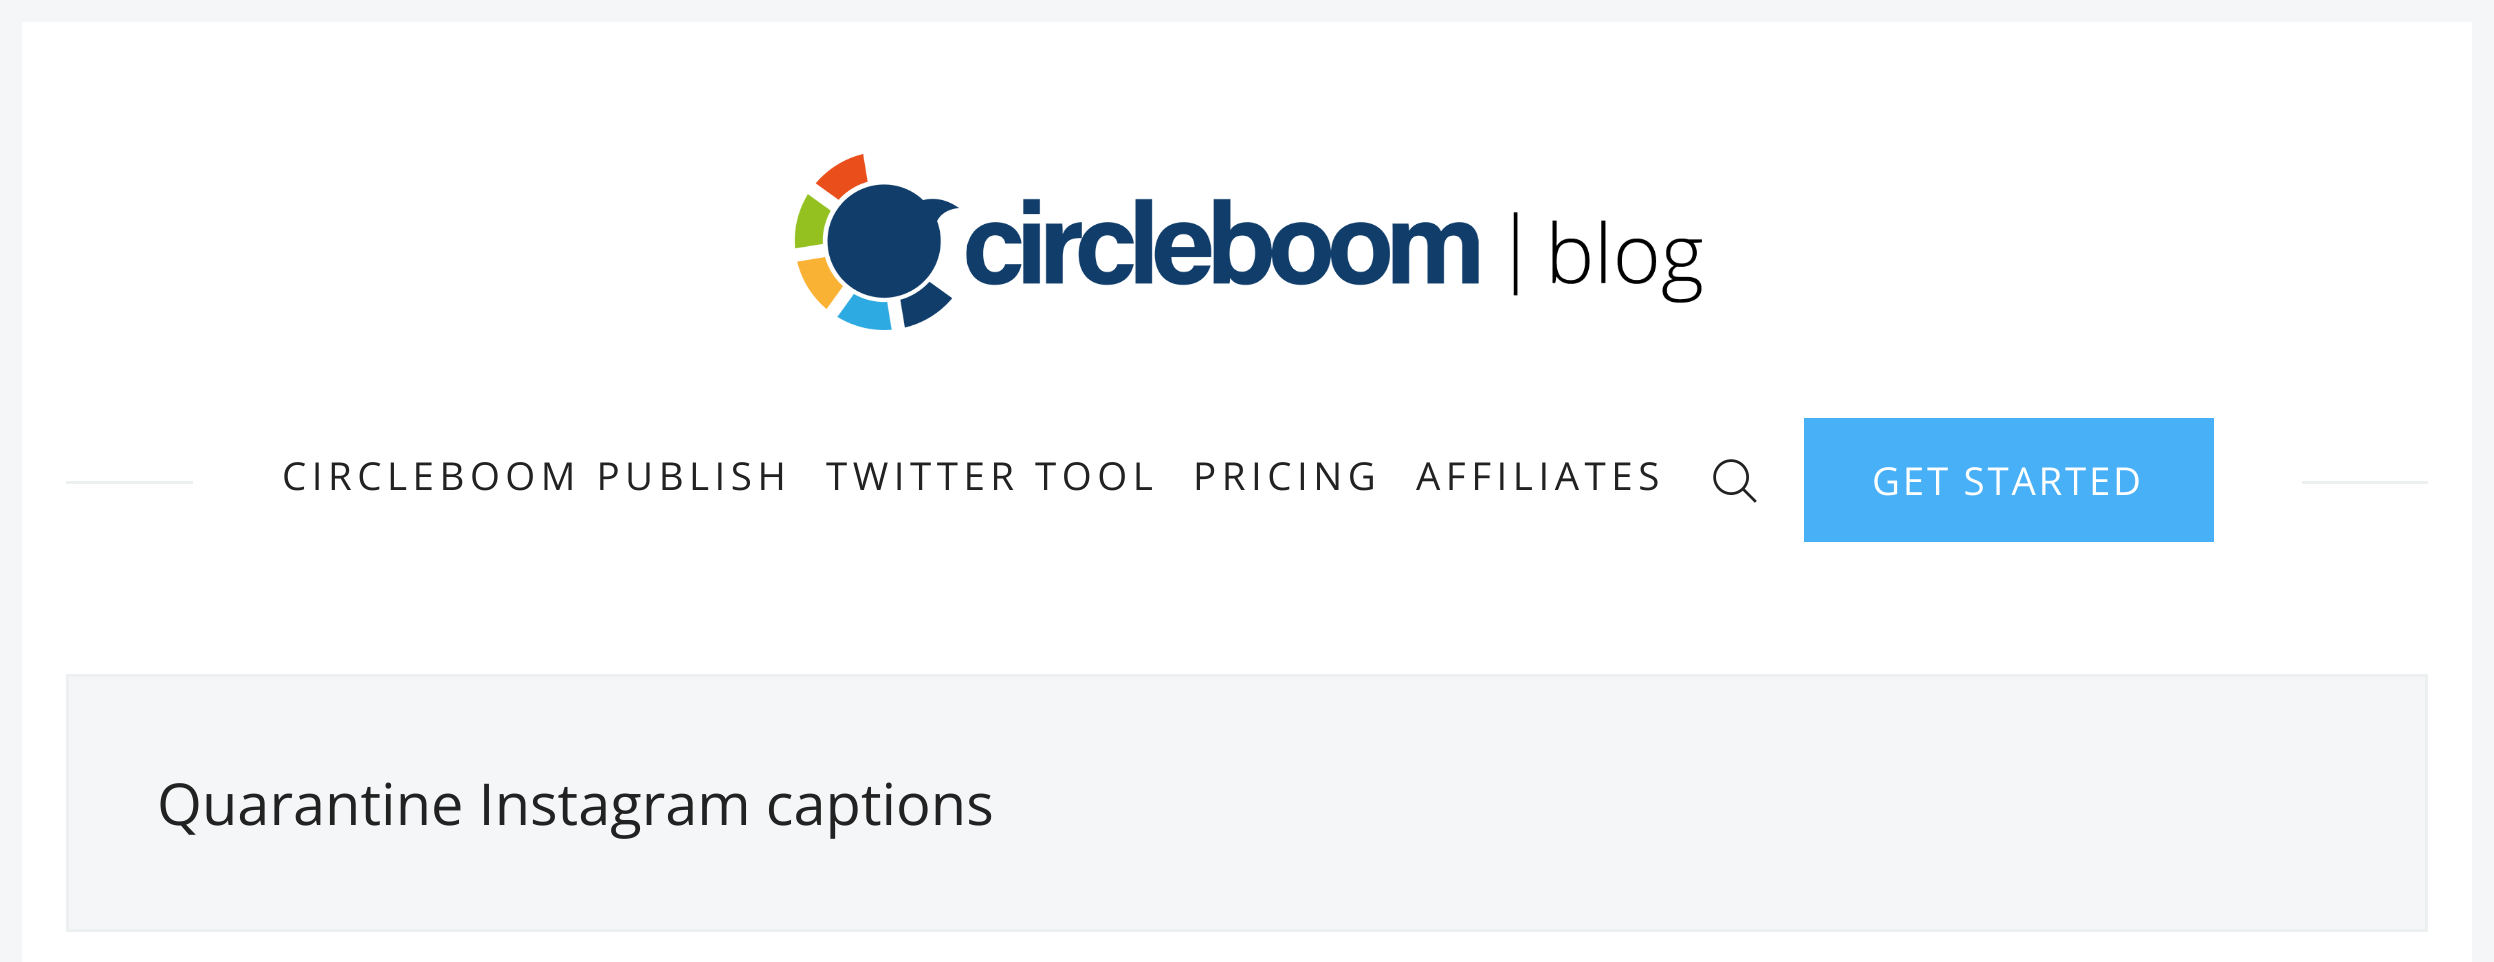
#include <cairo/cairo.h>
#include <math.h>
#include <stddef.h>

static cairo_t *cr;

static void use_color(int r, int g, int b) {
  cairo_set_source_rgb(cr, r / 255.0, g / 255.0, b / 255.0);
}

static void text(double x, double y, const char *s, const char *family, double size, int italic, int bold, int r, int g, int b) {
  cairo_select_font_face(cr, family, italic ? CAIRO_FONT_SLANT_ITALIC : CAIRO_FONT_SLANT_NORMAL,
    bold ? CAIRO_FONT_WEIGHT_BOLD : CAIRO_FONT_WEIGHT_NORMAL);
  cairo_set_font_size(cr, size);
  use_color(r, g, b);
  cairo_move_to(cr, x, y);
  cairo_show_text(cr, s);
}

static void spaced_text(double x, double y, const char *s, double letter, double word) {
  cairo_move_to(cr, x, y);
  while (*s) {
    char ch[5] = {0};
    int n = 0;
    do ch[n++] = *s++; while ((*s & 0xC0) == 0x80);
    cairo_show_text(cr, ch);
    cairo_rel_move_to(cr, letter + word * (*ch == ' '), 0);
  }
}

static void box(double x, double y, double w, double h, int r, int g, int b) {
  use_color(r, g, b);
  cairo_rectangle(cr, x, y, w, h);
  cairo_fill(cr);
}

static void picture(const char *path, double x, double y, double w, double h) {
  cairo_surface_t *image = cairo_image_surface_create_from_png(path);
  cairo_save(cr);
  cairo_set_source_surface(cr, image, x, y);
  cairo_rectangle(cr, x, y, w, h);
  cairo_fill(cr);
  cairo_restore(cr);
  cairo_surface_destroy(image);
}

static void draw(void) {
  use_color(255, 255, 255);
  cairo_paint(cr);
  cairo_rectangle(cr, 11, 11, 2472, 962);
  use_color(244, 246, 248);
  cairo_set_line_width(cr, 22);
  cairo_stroke(cr);
  picture("img_01.png", 794, 154, 908, 176);
  box(66, 481, 2362, 3, 236, 240, 241);
  box(193, 481, 2109, 3, 255, 255, 255);
  picture("img_02.png", 1713, 459, 44, 44);
  box(1804, 418, 410, 124, 72, 176, 247);
  use_color(244, 246, 248);
  cairo_rectangle(cr, 67.5, 675.5, 2359, 255);
  cairo_fill_preserve(cr);
  use_color(236, 240, 241);
  cairo_set_line_width(cr, 3);
  cairo_stroke(cr);
  cairo_select_font_face(cr, "Open Sans", CAIRO_FONT_SLANT_NORMAL, CAIRO_FONT_WEIGHT_NORMAL);
  cairo_set_font_size(cr, 38.5);
  use_color(34, 34, 34);
  spaced_text(282, 490, "CIRCLEBOOM PUBLISH", 5.5, 0);
  spaced_text(826, 490, "TWITTER TOOL", 5.5, 0);
  spaced_text(1193, 490, "PRICING", 5.5, 0);
  spaced_text(1416, 490, "AFFILIATES", 5.5, 0);
  use_color(255, 255, 255);
  spaced_text(1872, 495, "GET STARTED", 2.75, 0);
  text(157, 825, "Quarantine Instagram captions", "Open Sans", 57.75, 0, 0, 34, 34, 34);
}

int main(void) {
  cairo_surface_t *surface = cairo_image_surface_create(CAIRO_FORMAT_RGB24, 2494, 962);
  cr = cairo_create(surface);
  cairo_font_options_t *options = cairo_font_options_create();
  cairo_font_options_set_hint_metrics(options, CAIRO_HINT_METRICS_OFF);
  cairo_font_options_set_hint_style(options, CAIRO_HINT_STYLE_NONE);
  cairo_set_font_options(cr, options);
  cairo_set_miter_limit(cr, 4);
  draw();
  cairo_surface_write_to_png(surface, "out.png");
  cairo_font_options_destroy(options);
  cairo_destroy(cr);
  cairo_surface_destroy(surface);
  return 0;
}
